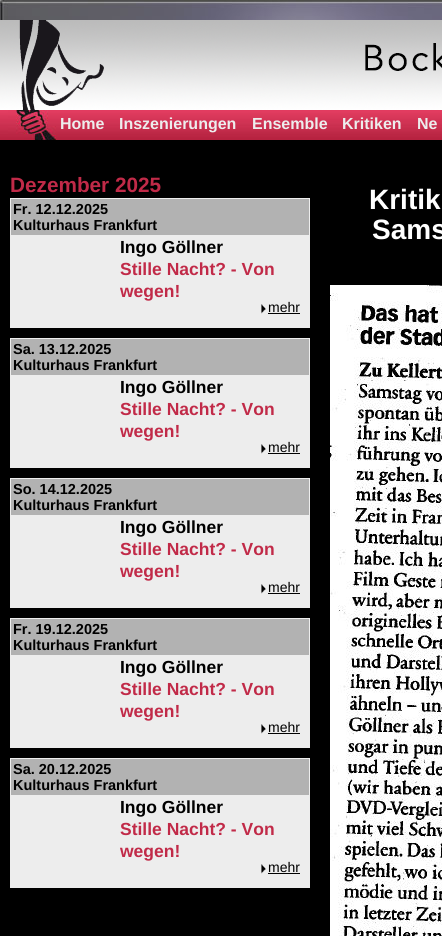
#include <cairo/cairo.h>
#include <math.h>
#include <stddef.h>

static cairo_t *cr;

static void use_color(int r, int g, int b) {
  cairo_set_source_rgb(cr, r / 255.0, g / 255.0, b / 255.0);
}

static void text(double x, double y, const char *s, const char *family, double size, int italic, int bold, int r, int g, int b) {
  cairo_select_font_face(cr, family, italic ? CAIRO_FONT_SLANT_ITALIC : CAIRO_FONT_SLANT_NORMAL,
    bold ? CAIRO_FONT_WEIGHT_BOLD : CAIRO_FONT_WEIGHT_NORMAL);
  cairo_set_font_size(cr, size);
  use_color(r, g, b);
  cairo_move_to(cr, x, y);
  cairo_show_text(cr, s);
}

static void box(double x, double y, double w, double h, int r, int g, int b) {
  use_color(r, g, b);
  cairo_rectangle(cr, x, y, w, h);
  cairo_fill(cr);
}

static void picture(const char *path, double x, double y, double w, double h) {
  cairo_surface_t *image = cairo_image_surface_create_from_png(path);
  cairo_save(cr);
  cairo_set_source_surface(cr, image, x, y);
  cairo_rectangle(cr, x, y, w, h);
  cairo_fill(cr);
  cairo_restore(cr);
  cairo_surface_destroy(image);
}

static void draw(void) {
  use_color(255, 255, 255);
  cairo_paint(cr);
  picture("img_01.png", 0, 0, 442, 20);
  box(0, 140, 442, 796, 0, 0, 0);
  picture("img_02.png", 0, 20, 442, 90);
  picture("img_03.png", 0, 110, 442, 30);
  box(10, 236, 300, 92, 237, 237, 237);
  use_color(178, 178, 178);
  cairo_rectangle(cr, 10.5, 198.5, 299, 37);
  cairo_fill_preserve(cr);
  use_color(237, 237, 237);
  cairo_set_line_width(cr, 1);
  cairo_stroke(cr);
  picture("img_04.png", 261, 304, 5, 10);
  box(268, 313, 32, 1, 0, 0, 0);
  box(10, 376, 300, 92, 237, 237, 237);
  use_color(178, 178, 178);
  cairo_rectangle(cr, 10.5, 338.5, 299, 37);
  cairo_fill_preserve(cr);
  use_color(237, 237, 237);
  cairo_stroke(cr);
  picture("img_04.png", 261, 444, 5, 10);
  box(268, 453, 32, 1, 0, 0, 0);
  box(10, 516, 300, 92, 237, 237, 237);
  use_color(178, 178, 178);
  cairo_rectangle(cr, 10.5, 478.5, 299, 37);
  cairo_fill_preserve(cr);
  use_color(237, 237, 237);
  cairo_stroke(cr);
  picture("img_04.png", 261, 584, 5, 10);
  box(268, 593, 32, 1, 0, 0, 0);
  box(10, 656, 300, 92, 237, 237, 237);
  use_color(178, 178, 178);
  cairo_rectangle(cr, 10.5, 618.5, 299, 37);
  cairo_fill_preserve(cr);
  use_color(237, 237, 237);
  cairo_stroke(cr);
  picture("img_04.png", 261, 724, 5, 10);
  box(268, 733, 32, 1, 0, 0, 0);
  box(10, 796, 300, 92, 237, 237, 237);
  use_color(178, 178, 178);
  cairo_rectangle(cr, 10.5, 758.5, 299, 37);
  cairo_fill_preserve(cr);
  use_color(237, 237, 237);
  cairo_stroke(cr);
  picture("img_04.png", 261, 864, 5, 10);
  box(268, 873, 32, 1, 0, 0, 0);
  picture("img_05.png", 330, 285, 112, 651);
  text(60, 129, "Home", "Liberation Sans", 16, 0, 1, 237, 237, 237);
  text(119, 129, "Inszenierungen", "Liberation Sans", 16, 0, 1, 237, 237, 237);
  text(252, 129, "Ensemble", "Liberation Sans", 16, 0, 1, 237, 237, 237);
  text(342, 129, "Kritiken", "Liberation Sans", 16, 0, 1, 237, 237, 237);
  text(417, 129, "Ne", "Liberation Sans", 16, 0, 1, 237, 237, 237);
  text(10, 192, "Dezember 2025", "Liberation Sans", 20.75, 0, 1, 193, 42, 72);
  text(13, 214, "Fr. 12.12.2025", "Liberation Sans", 14.5, 0, 1, 0, 0, 0);
  text(13, 230, "Kulturhaus Frankfurt", "Liberation Sans", 14.5, 0, 1, 0, 0, 0);
  text(120, 253, "Ingo Göllner", "Liberation Sans", 17.5, 0, 1, 0, 0, 0);
  text(120, 275, "Stille Nacht? - Von", "Liberation Sans", 17.5, 0, 1, 193, 42, 72);
  text(120, 297, "wegen!", "Liberation Sans", 17.5, 0, 1, 193, 42, 72);
  text(268, 312, "mehr", "Liberation Sans", 14, 0, 0, 0, 0, 0);
  text(13, 354, "Sa. 13.12.2025", "Liberation Sans", 14.5, 0, 1, 0, 0, 0);
  text(13, 370, "Kulturhaus Frankfurt", "Liberation Sans", 14.5, 0, 1, 0, 0, 0);
  text(120, 393, "Ingo Göllner", "Liberation Sans", 17.5, 0, 1, 0, 0, 0);
  text(120, 415, "Stille Nacht? - Von", "Liberation Sans", 17.5, 0, 1, 193, 42, 72);
  text(120, 437, "wegen!", "Liberation Sans", 17.5, 0, 1, 193, 42, 72);
  text(268, 452, "mehr", "Liberation Sans", 14, 0, 0, 0, 0, 0);
  text(13, 494, "So. 14.12.2025", "Liberation Sans", 14.5, 0, 1, 0, 0, 0);
  text(13, 510, "Kulturhaus Frankfurt", "Liberation Sans", 14.5, 0, 1, 0, 0, 0);
  text(120, 533, "Ingo Göllner", "Liberation Sans", 17.5, 0, 1, 0, 0, 0);
  text(120, 555, "Stille Nacht? - Von", "Liberation Sans", 17.5, 0, 1, 193, 42, 72);
  text(120, 577, "wegen!", "Liberation Sans", 17.5, 0, 1, 193, 42, 72);
  text(268, 592, "mehr", "Liberation Sans", 14, 0, 0, 0, 0, 0);
  text(13, 634, "Fr. 19.12.2025", "Liberation Sans", 14.5, 0, 1, 0, 0, 0);
  text(13, 650, "Kulturhaus Frankfurt", "Liberation Sans", 14.5, 0, 1, 0, 0, 0);
  text(120, 673, "Ingo Göllner", "Liberation Sans", 17.5, 0, 1, 0, 0, 0);
  text(120, 695, "Stille Nacht? - Von", "Liberation Sans", 17.5, 0, 1, 193, 42, 72);
  text(120, 717, "wegen!", "Liberation Sans", 17.5, 0, 1, 193, 42, 72);
  text(268, 732, "mehr", "Liberation Sans", 14, 0, 0, 0, 0, 0);
  text(13, 774, "Sa. 20.12.2025", "Liberation Sans", 14.5, 0, 1, 0, 0, 0);
  text(13, 790, "Kulturhaus Frankfurt", "Liberation Sans", 14.5, 0, 1, 0, 0, 0);
  text(120, 813, "Ingo Göllner", "Liberation Sans", 17.5, 0, 1, 0, 0, 0);
  text(120, 835, "Stille Nacht? - Von", "Liberation Sans", 17.5, 0, 1, 193, 42, 72);
  text(120, 857, "wegen!", "Liberation Sans", 17.5, 0, 1, 193, 42, 72);
  text(268, 872, "mehr", "Liberation Sans", 14, 0, 0, 0, 0, 0);
  text(369, 209, "Kritik", "Liberation Sans", 28, 0, 1, 255, 255, 255);
  text(372, 239, "Sams", "Liberation Sans", 28, 0, 1, 255, 255, 255);
}

int main(void) {
  cairo_surface_t *surface = cairo_image_surface_create(CAIRO_FORMAT_RGB24, 442, 936);
  cr = cairo_create(surface);
  cairo_font_options_t *options = cairo_font_options_create();
  cairo_font_options_set_hint_metrics(options, CAIRO_HINT_METRICS_OFF);
  cairo_font_options_set_hint_style(options, CAIRO_HINT_STYLE_NONE);
  cairo_set_font_options(cr, options);
  cairo_set_miter_limit(cr, 4);
  draw();
  cairo_surface_write_to_png(surface, "out.png");
  cairo_font_options_destroy(options);
  cairo_destroy(cr);
  cairo_surface_destroy(surface);
  return 0;
}
